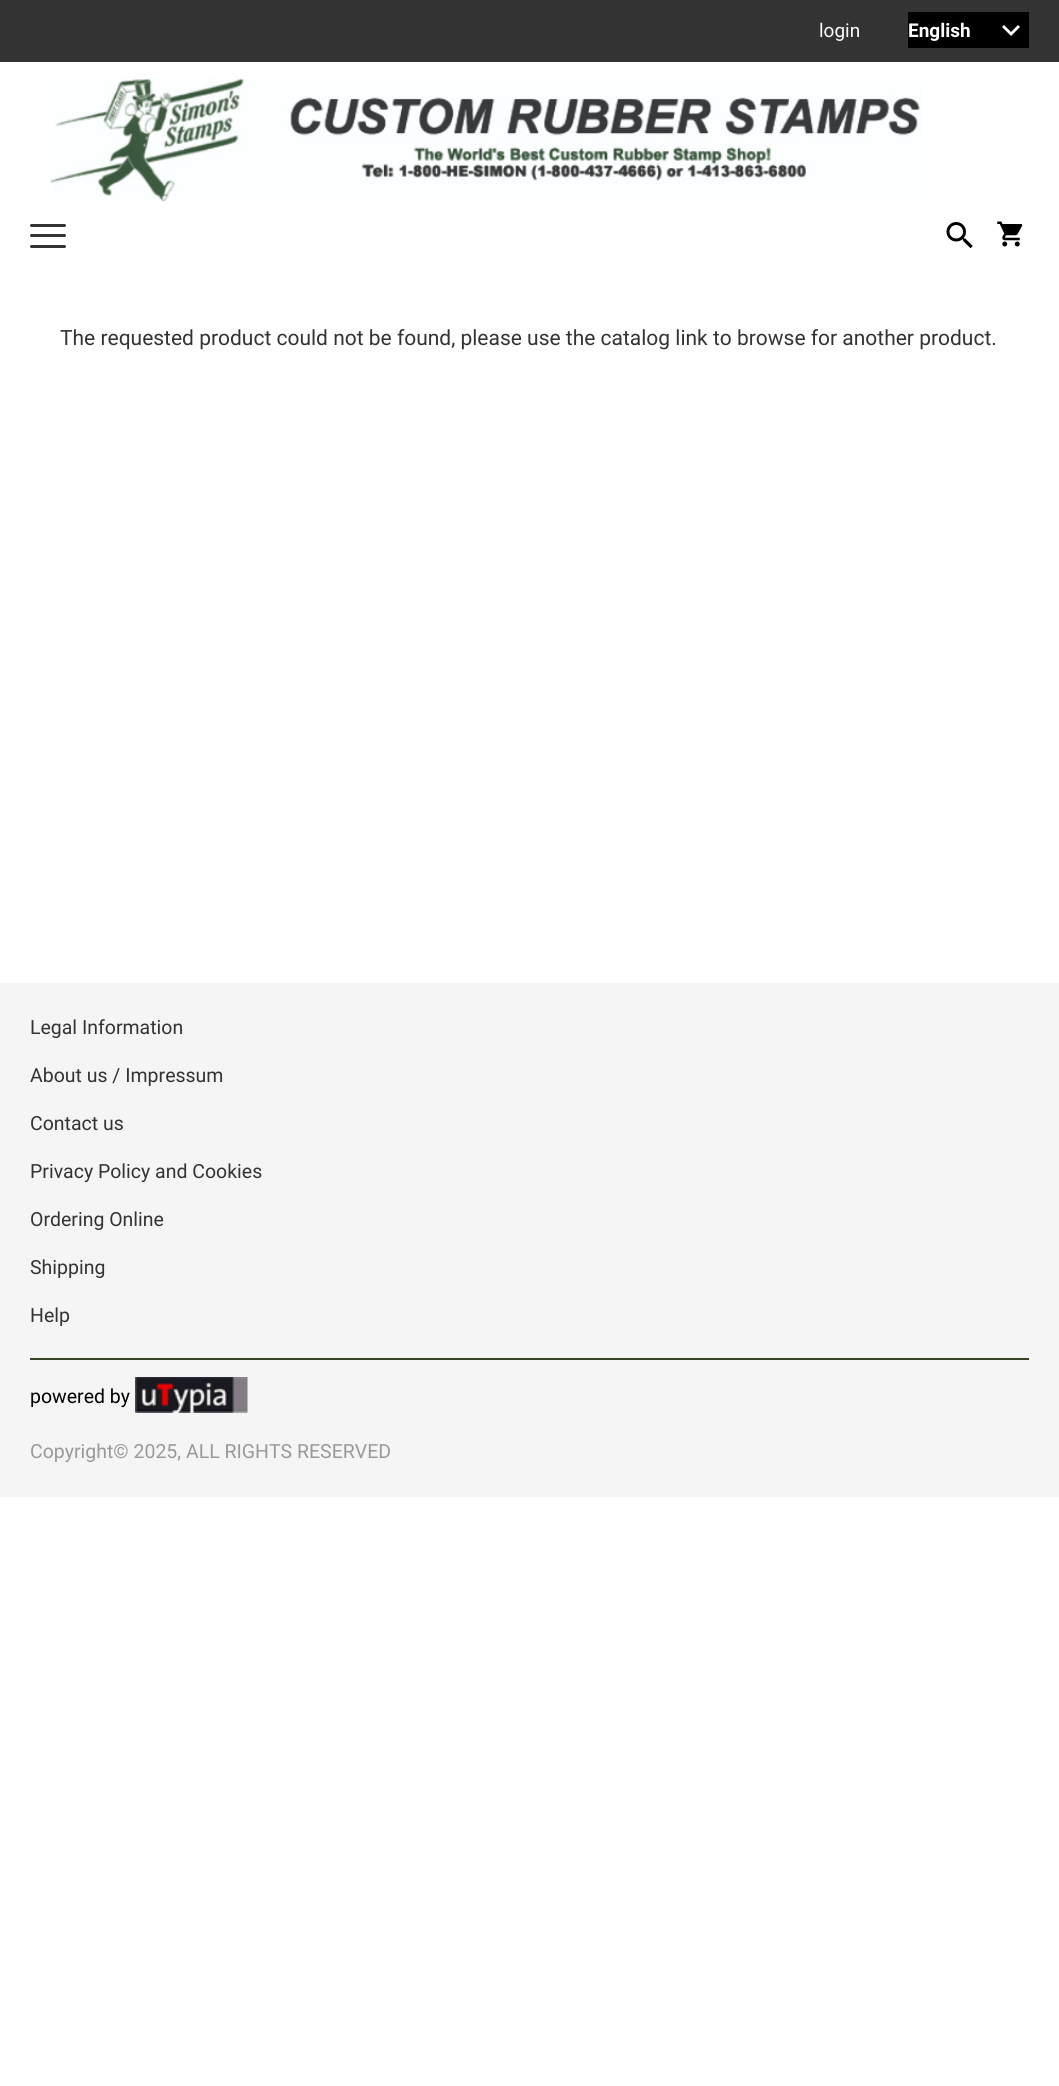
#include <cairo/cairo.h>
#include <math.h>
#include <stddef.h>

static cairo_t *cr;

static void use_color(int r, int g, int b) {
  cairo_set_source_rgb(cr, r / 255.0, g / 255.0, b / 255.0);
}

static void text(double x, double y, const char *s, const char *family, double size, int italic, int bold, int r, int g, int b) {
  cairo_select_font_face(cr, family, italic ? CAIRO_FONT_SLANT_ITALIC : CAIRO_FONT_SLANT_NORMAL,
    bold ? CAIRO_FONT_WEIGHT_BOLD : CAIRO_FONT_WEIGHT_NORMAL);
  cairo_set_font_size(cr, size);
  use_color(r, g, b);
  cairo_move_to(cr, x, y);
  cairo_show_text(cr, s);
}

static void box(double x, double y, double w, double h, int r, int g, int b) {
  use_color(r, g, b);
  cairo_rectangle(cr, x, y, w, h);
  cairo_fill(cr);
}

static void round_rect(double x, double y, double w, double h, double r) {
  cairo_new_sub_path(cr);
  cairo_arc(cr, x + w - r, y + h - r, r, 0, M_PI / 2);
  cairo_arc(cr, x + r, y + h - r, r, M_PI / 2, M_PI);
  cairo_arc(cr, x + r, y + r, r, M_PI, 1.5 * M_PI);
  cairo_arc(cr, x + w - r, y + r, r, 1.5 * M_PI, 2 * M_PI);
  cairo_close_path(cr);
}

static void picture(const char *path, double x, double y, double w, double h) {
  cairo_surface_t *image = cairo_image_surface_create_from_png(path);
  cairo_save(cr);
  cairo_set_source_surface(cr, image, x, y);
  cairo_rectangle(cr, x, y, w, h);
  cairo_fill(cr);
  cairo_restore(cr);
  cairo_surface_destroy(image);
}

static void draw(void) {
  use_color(255, 255, 255);
  cairo_paint(cr);
  box(0, 0, 1059, 62, 51, 51, 51);
  box(908, 12, 121, 36, 0, 0, 0);
  use_color(255, 255, 255);
  cairo_new_path(cr);
  cairo_move_to(cr, 1004, 25);
  cairo_line_to(cr, 1011, 32);
  cairo_line_to(cr, 1018, 25);
  cairo_line_to(cr, 1020, 27);
  cairo_line_to(cr, 1011, 36);
  cairo_line_to(cr, 1002, 27);
  cairo_close_path(cr);
  cairo_fill(cr);
  use_color(51, 51, 51);
  round_rect(30, 234, 36, 3, 1.5);
  cairo_fill(cr);
  round_rect(30, 224, 36, 3, 1.5);
  cairo_fill(cr);
  round_rect(30, 245, 36, 3, 1.5);
  cairo_fill(cr);
  picture("img_01.png", 50, 77, 873, 124);
  picture("img_02.png", 946, 222, 27, 27);
  picture("img_03.png", 997, 221, 26, 26);
  box(0, 983, 1059, 514, 245, 245, 245);
  box(30, 1358, 999, 2, 52, 69, 40);
  picture("img_04.png", 135, 1377, 113, 36);
  text(819, 37, "login", "Roboto", 19, 0, 0, 255, 255, 255);
  text(908, 37, "English", "Roboto", 19, 0, 1, 255, 255, 255);
  text(60, 345, "The requested product could not be found, please use the catalog link to browse for another product.", "Roboto", 21, 0, 0, 51, 51, 51);
  text(30, 1034, "Legal Information", "Roboto", 19.5, 0, 0, 51, 51, 51);
  text(30, 1082, "About us / Impressum", "Roboto", 19.5, 0, 0, 51, 51, 51);
  text(30, 1130, "Contact us", "Roboto", 19.5, 0, 0, 51, 51, 51);
  text(30, 1178, "Privacy Policy and Cookies", "Roboto", 19.5, 0, 0, 51, 51, 51);
  text(30, 1226, "Ordering Online", "Roboto", 19.5, 0, 0, 51, 51, 51);
  text(30, 1274, "Shipping", "Roboto", 19.5, 0, 0, 51, 51, 51);
  text(30, 1322, "Help", "Roboto", 19.5, 0, 0, 51, 51, 51);
  text(30, 1403, "powered by", "Roboto", 19.5, 0, 0, 0, 0, 0);
  text(30, 1458, "Copyright© 2025, ALL RIGHTS RESERVED", "Roboto", 19.5, 0, 0, 153, 153, 153);
}

int main(void) {
  cairo_surface_t *surface = cairo_image_surface_create(CAIRO_FORMAT_RGB24, 1059, 2086);
  cr = cairo_create(surface);
  cairo_font_options_t *options = cairo_font_options_create();
  cairo_font_options_set_hint_metrics(options, CAIRO_HINT_METRICS_OFF);
  cairo_font_options_set_hint_style(options, CAIRO_HINT_STYLE_NONE);
  cairo_set_font_options(cr, options);
  cairo_set_miter_limit(cr, 4);
  draw();
  cairo_surface_write_to_png(surface, "out.png");
  cairo_font_options_destroy(options);
  cairo_destroy(cr);
  cairo_surface_destroy(surface);
  return 0;
}
